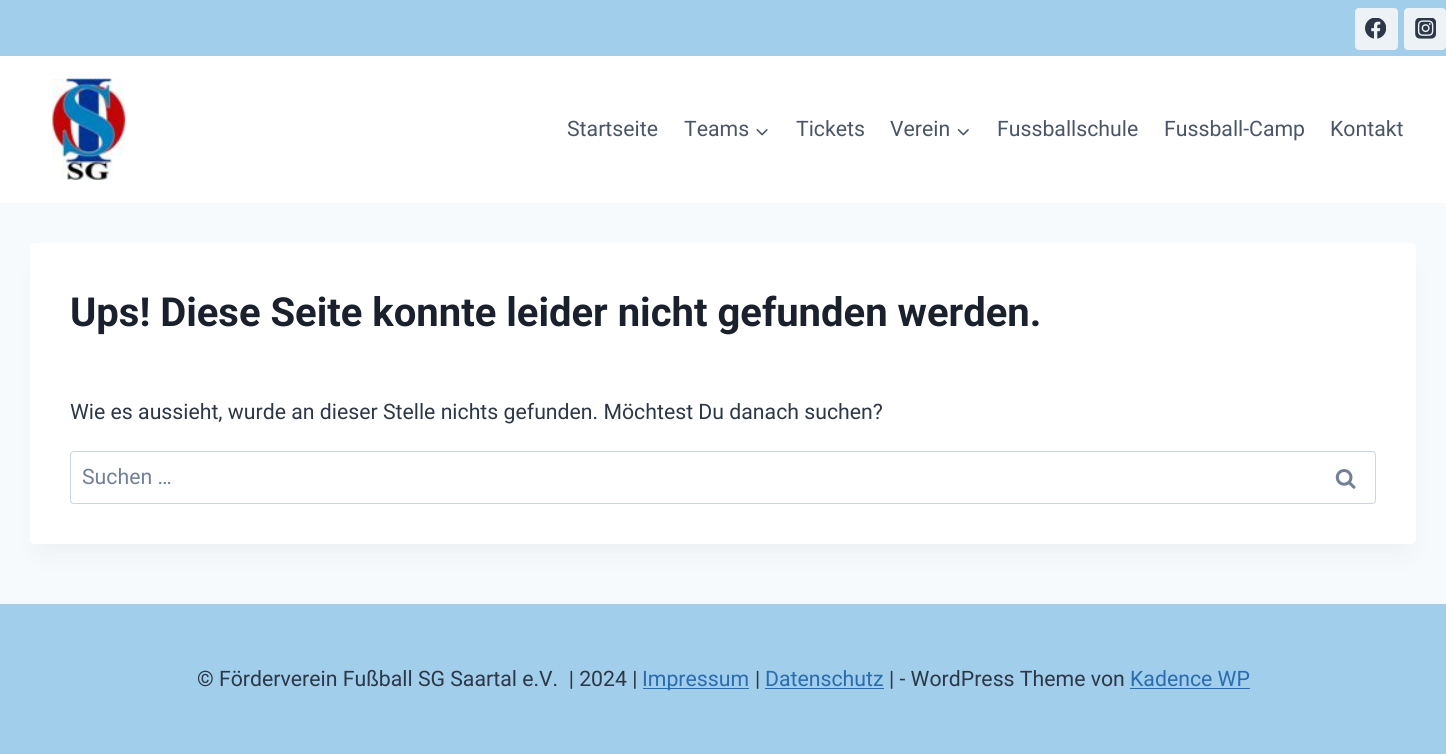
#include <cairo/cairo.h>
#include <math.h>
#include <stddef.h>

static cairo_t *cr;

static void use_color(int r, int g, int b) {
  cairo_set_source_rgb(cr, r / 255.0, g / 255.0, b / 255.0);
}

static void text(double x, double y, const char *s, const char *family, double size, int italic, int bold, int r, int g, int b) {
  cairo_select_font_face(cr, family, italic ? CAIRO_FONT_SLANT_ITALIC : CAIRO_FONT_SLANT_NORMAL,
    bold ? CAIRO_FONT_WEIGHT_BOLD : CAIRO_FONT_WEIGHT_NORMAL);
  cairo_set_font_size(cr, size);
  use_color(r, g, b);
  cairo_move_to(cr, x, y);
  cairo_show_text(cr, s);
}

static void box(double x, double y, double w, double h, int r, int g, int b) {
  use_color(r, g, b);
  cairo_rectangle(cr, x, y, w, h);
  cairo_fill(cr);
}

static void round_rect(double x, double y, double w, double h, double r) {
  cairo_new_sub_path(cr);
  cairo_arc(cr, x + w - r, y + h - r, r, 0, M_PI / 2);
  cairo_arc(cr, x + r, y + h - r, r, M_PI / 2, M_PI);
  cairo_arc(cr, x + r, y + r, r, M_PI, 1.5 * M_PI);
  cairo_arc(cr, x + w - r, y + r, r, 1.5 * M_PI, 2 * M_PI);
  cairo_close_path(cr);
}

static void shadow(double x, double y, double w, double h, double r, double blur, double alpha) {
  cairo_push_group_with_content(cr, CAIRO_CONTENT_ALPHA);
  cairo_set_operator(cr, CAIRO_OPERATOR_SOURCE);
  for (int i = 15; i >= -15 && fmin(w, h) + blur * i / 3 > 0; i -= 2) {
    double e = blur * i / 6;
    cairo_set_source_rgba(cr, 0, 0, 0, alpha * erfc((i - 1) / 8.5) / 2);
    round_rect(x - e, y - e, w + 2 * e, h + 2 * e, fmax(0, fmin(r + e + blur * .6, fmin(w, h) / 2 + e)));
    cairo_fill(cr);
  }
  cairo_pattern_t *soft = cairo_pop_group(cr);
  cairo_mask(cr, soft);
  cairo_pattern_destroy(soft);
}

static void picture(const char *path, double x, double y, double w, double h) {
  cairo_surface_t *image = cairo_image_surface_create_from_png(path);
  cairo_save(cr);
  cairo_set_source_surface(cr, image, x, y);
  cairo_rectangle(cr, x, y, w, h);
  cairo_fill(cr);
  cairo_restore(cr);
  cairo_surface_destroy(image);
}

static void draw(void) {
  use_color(247, 250, 252);
  cairo_paint(cr);
  box(0, 56, 1446, 147, 255, 255, 255);
  box(0, 0, 1446, 56, 160, 206, 235);
  use_color(237, 242, 247);
  round_rect(1355, 8, 43, 42, 4);
  cairo_fill(cr);
  picture("img_01.png", 1365, 18, 21, 21);
  round_rect(1404, 8, 42, 42, 4);
  cairo_fill(cr);
  picture("img_02.png", 1415, 18, 21, 21);
  picture("img_03.png", 52, 78, 73, 102);
  picture("img_04.png", 756, 129, 12, 7);
  picture("img_05.png", 957, 129, 12, 7);
  use_color(0, 0, 0);
  shadow(43, 274, 1361, 276, 0, 15.5, 0.05);
  use_color(255, 255, 255);
  round_rect(30, 243, 1386, 301, 5);
  cairo_fill(cr);
  round_rect(70.5, 451.5, 1305, 52, 3.5);
  use_color(203, 213, 224);
  cairo_set_line_width(cr, 1);
  cairo_stroke(cr);
  picture("img_06.png", 1335, 469, 21, 20);
  box(0, 604, 1446, 150, 160, 206, 235);
  box(643, 688, 106, 1, 43, 108, 176);
  box(765, 688, 119, 1, 43, 108, 176);
  box(1130, 688, 120, 1, 43, 108, 176);
  text(567, 136, "Startseite", "Roboto", 21.25, 0, 0, 74, 85, 104);
  text(684, 136, "Teams", "Roboto", 21.25, 0, 0, 74, 85, 104);
  text(796, 136, "Tickets", "Roboto", 21.25, 0, 0, 74, 85, 104);
  text(890, 136, "Verein", "Roboto", 21.25, 0, 0, 74, 85, 104);
  text(997, 136, "Fussballschule", "Roboto", 21.25, 0, 0, 74, 85, 104);
  text(1164, 136, "Fussball-Camp", "Roboto", 21.25, 0, 0, 74, 85, 104);
  text(1330, 136, "Kontakt", "Roboto", 21.25, 0, 0, 74, 85, 104);
  text(70, 326, "Ups! Diese Seite konnte leider nicht gefunden werden.", "Roboto", 40, 0, 1, 26, 32, 44);
  text(70, 419, "Wie es aussieht, wurde an dieser Stelle nichts gefunden. Möchtest Du danach suchen?", "Roboto", 21.25, 0, 0, 45, 55, 72);
  text(82, 484, "Suchen …", "Roboto", 21.25, 0, 0, 113, 128, 150);
  text(197, 686, "© Förderverein Fußball SG Saartal e.V.  | 2024 |", "Roboto", 21.25, 0, 0, 45, 55, 72);
  text(642, 686, "Impressum", "Roboto", 21.25, 0, 0, 43, 108, 176);
  text(755, 686, "|", "Roboto", 21.25, 0, 0, 45, 55, 72);
  text(765, 686, "Datenschutz", "Roboto", 21.25, 0, 0, 43, 108, 176);
  text(889, 686, "| - WordPress Theme von", "Roboto", 21.25, 0, 0, 45, 55, 72);
  text(1130, 686, "Kadence WP", "Roboto", 21.25, 0, 0, 43, 108, 176);
}

int main(void) {
  cairo_surface_t *surface = cairo_image_surface_create(CAIRO_FORMAT_RGB24, 1446, 754);
  cr = cairo_create(surface);
  cairo_font_options_t *options = cairo_font_options_create();
  cairo_font_options_set_hint_metrics(options, CAIRO_HINT_METRICS_OFF);
  cairo_font_options_set_hint_style(options, CAIRO_HINT_STYLE_NONE);
  cairo_set_font_options(cr, options);
  cairo_set_miter_limit(cr, 4);
  draw();
  cairo_surface_write_to_png(surface, "out.png");
  cairo_font_options_destroy(options);
  cairo_destroy(cr);
  cairo_surface_destroy(surface);
  return 0;
}
